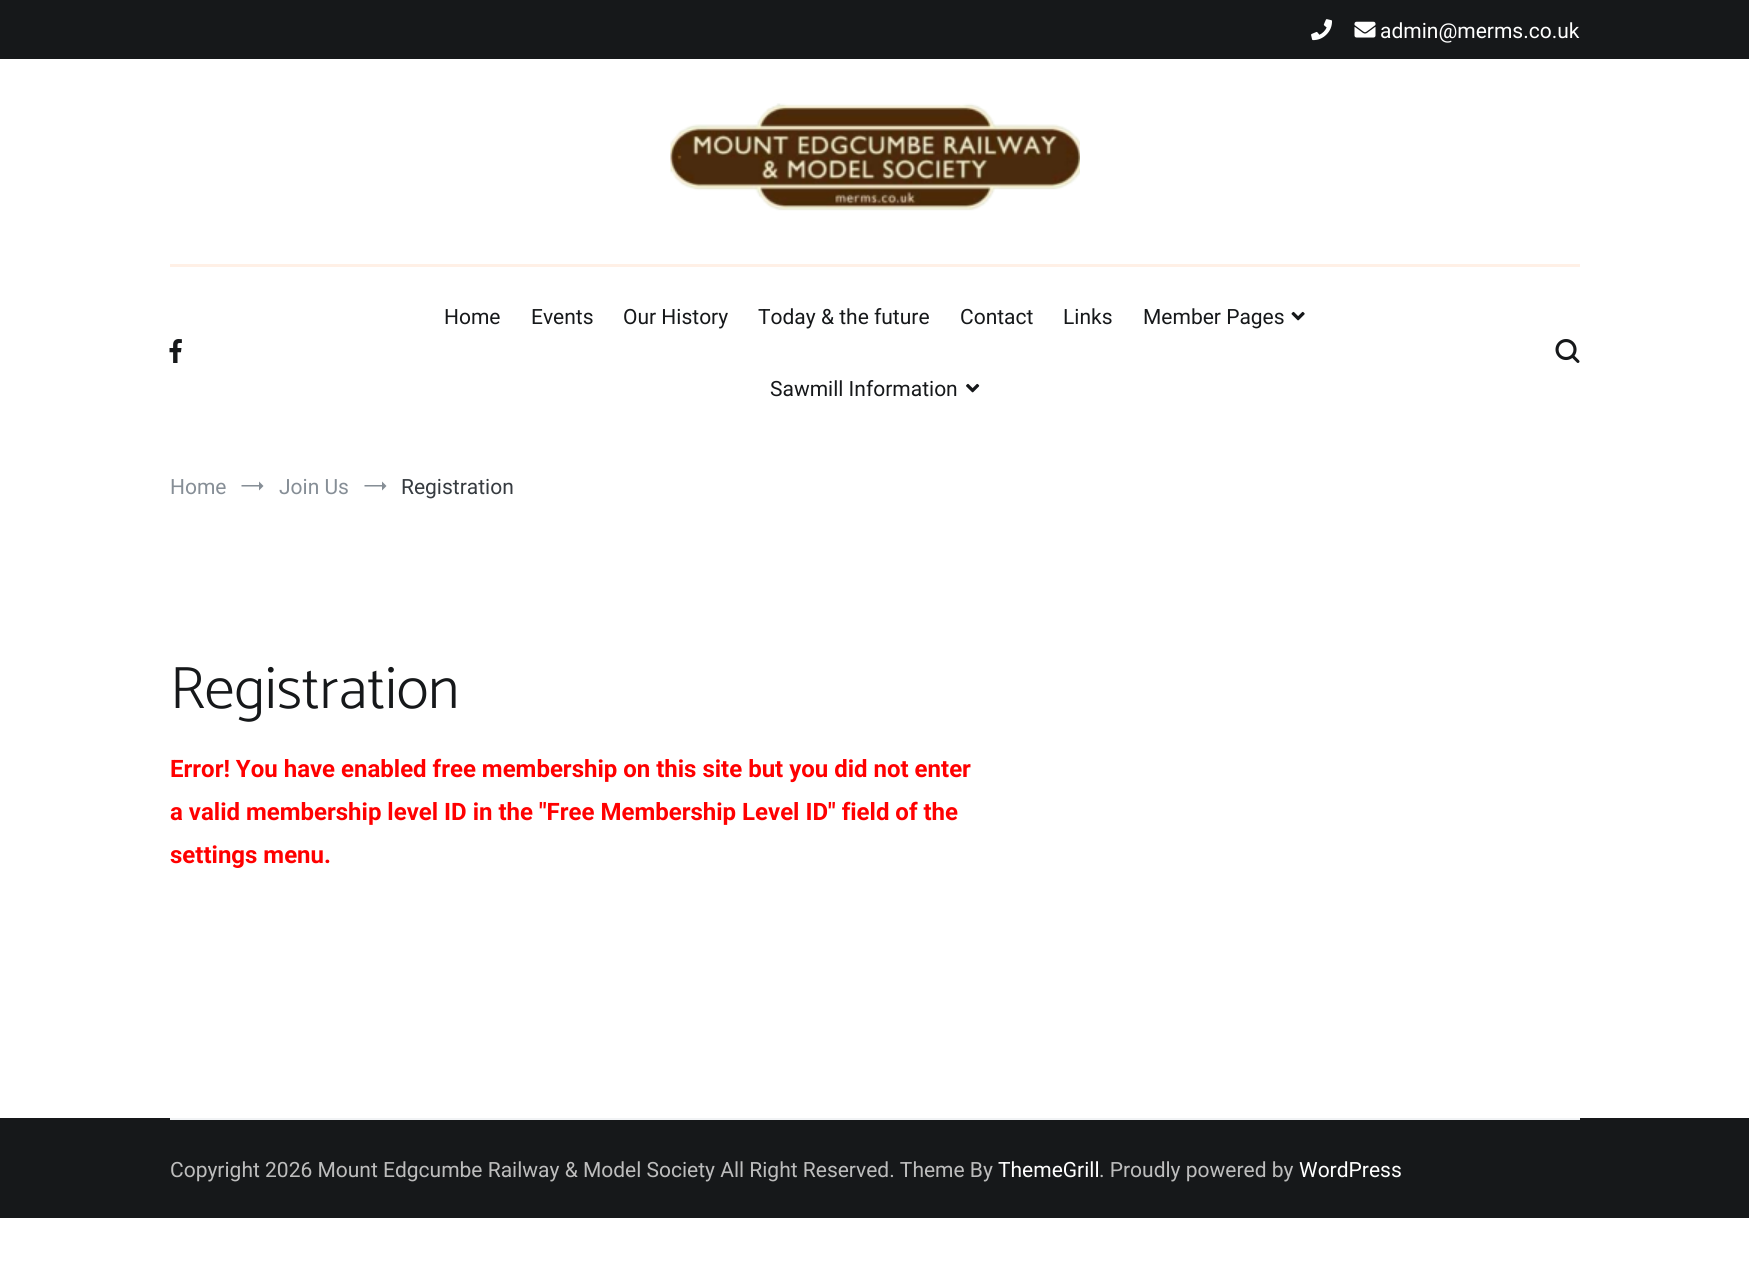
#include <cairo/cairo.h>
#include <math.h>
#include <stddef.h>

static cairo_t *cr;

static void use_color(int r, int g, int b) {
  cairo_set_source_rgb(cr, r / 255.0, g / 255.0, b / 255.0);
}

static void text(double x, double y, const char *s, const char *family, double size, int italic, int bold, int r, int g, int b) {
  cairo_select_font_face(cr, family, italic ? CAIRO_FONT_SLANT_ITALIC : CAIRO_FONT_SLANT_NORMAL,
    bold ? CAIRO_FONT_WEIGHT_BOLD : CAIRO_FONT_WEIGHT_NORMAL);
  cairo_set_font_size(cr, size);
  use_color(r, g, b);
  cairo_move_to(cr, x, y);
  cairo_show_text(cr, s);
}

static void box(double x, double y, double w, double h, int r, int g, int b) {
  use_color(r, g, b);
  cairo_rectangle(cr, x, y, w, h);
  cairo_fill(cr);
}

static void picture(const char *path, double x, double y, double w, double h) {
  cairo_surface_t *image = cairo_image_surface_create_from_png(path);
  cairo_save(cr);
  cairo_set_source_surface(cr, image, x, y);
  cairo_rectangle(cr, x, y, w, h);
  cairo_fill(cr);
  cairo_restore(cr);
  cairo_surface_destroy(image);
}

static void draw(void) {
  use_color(255, 255, 255);
  cairo_paint(cr);
  box(0, 0, 1749, 59, 22, 24, 26);
  picture("img_01.png", 1311, 19, 21, 22);
  picture("img_02.png", 1354, 21, 22, 17);
  picture("img_03.png", 670, 103, 410, 108);
  box(170, 264, 1410, 3, 255, 240, 230);
  picture("img_04.png", 169, 339, 13, 24);
  picture("img_05.png", 1291, 311, 14, 10);
  picture("img_06.png", 966, 383, 14, 10);
  picture("img_07.png", 1555, 339, 25, 24);
  use_color(134, 142, 150);
  cairo_new_path(cr);
  cairo_move_to(cr, 263.5, 486);
  cairo_line_to(cr, 259, 490.5);
  cairo_line_to(cr, 259, 481.5);
  cairo_close_path(cr);
  cairo_move_to(cr, 241.5, 485);
  cairo_line_to(cr, 259, 485);
  cairo_line_to(cr, 259, 486.5);
  cairo_line_to(cr, 241.5, 486.5);
  cairo_close_path(cr);
  cairo_fill(cr);
  cairo_new_path(cr);
  cairo_move_to(cr, 386.5, 486);
  cairo_line_to(cr, 382, 490.5);
  cairo_line_to(cr, 382, 481.5);
  cairo_close_path(cr);
  cairo_move_to(cr, 364.5, 485);
  cairo_line_to(cr, 382, 485);
  cairo_line_to(cr, 382, 486.5);
  cairo_line_to(cr, 364.5, 486.5);
  cairo_close_path(cr);
  cairo_fill(cr);
  box(0, 1118, 1749, 100, 22, 24, 26);
  box(170, 1118, 1410, 2, 241, 243, 245);
  text(1380, 38, "admin@merms.co.uk", "Roboto", 21, 0, 0, 255, 255, 255);
  text(444, 324, "Home", "Roboto", 21, 0, 0, 22, 24, 26);
  text(531, 324, "Events", "Roboto", 21, 0, 0, 22, 24, 26);
  text(623, 324, "Our History", "Roboto", 21, 0, 0, 22, 24, 26);
  text(758, 324, "Today & the future", "Roboto", 21, 0, 0, 22, 24, 26);
  text(960, 324, "Contact", "Roboto", 21, 0, 0, 22, 24, 26);
  text(1063, 324, "Links", "Roboto", 21, 0, 0, 22, 24, 26);
  text(1143, 324, "Member Pages", "Roboto", 21, 0, 0, 22, 24, 26);
  text(770, 396, "Sawmill Information", "Roboto", 21, 0, 0, 22, 24, 26);
  text(170, 494, "Home", "Roboto", 21, 0, 0, 134, 142, 150);
  text(279, 494, "Join Us", "Roboto", 21, 0, 0, 134, 142, 150);
  text(401, 494, "Registration", "Roboto", 21, 0, 0, 54, 59, 64);
  text(170, 708, "Registration", "Catamaran Light", 60, 0, 0, 22, 24, 26);
  text(170, 777, "Error! You have enabled free membership on this site but you did not enter", "Roboto", 24, 0, 1, 255, 0, 0);
  text(170, 820, "a valid membership level ID in the \"Free Membership Level ID\" field of the", "Roboto", 24, 0, 1, 255, 0, 0);
  text(170, 863, "settings menu.", "Roboto", 24, 0, 1, 255, 0, 0);
  text(170, 1177, "Copyright 2026 Mount Edgcumbe Railway & Model Society All Right Reserved. Theme By", "Roboto", 21, 0, 0, 189, 189, 189);
  text(998, 1177, "ThemeGrill", "Roboto", 21, 0, 0, 255, 255, 255);
  text(1099, 1177, ". Proudly powered by", "Roboto", 21, 0, 0, 189, 189, 189);
  text(1299, 1177, "WordPress", "Roboto", 21, 0, 0, 255, 255, 255);
}

int main(void) {
  cairo_surface_t *surface = cairo_image_surface_create(CAIRO_FORMAT_RGB24, 1749, 1285);
  cr = cairo_create(surface);
  cairo_font_options_t *options = cairo_font_options_create();
  cairo_font_options_set_hint_metrics(options, CAIRO_HINT_METRICS_OFF);
  cairo_font_options_set_hint_style(options, CAIRO_HINT_STYLE_NONE);
  cairo_set_font_options(cr, options);
  cairo_set_miter_limit(cr, 4);
  draw();
  cairo_surface_write_to_png(surface, "out.png");
  cairo_font_options_destroy(options);
  cairo_destroy(cr);
  cairo_surface_destroy(surface);
  return 0;
}
